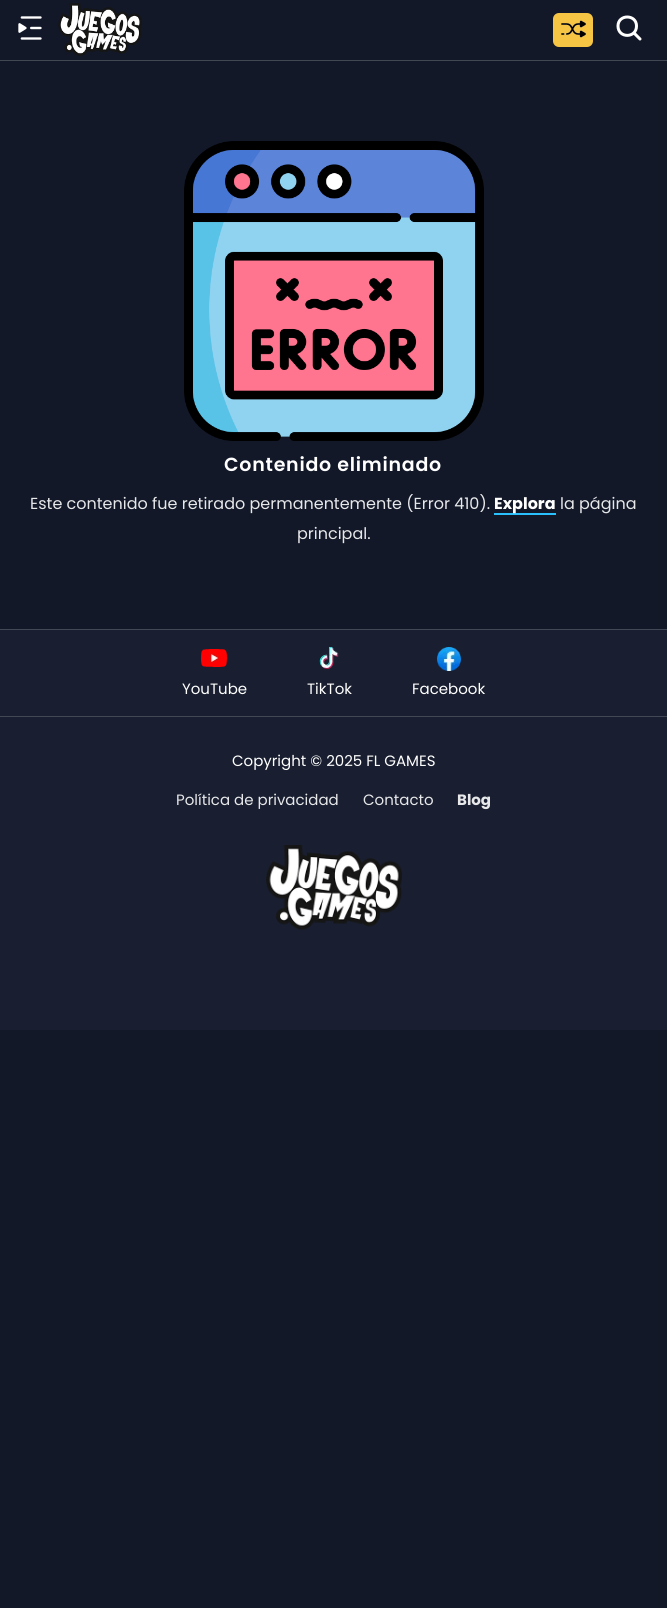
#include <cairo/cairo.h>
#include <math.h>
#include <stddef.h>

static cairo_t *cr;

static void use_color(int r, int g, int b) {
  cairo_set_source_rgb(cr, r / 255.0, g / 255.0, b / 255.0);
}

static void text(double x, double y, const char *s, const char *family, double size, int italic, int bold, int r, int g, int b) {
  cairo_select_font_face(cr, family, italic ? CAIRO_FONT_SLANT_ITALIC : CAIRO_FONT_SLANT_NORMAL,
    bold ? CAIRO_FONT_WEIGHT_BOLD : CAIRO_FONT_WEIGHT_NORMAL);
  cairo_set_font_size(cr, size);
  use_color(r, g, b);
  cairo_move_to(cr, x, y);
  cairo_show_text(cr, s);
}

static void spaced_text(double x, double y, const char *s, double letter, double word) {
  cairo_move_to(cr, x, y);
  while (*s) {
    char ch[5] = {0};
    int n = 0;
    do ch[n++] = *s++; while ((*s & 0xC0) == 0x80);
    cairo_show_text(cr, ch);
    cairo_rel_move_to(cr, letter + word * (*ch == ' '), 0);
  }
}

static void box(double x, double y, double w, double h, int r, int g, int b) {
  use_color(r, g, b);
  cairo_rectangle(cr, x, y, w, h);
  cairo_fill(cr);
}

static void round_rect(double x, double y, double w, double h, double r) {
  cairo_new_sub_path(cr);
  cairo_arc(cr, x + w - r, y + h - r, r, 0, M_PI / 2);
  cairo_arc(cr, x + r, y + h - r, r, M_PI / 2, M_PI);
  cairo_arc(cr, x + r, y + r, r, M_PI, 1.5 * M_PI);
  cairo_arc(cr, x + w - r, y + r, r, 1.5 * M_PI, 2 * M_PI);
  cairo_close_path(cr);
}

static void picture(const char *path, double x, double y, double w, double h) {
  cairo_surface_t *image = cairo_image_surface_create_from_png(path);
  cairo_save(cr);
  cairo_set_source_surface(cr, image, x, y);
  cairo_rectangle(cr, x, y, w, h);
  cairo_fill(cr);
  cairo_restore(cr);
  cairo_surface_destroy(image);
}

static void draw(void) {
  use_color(18, 24, 40);
  cairo_paint(cr);
  box(0, 60, 667, 1, 66, 71, 84);
  picture("img_01.png", 18, 16, 24, 24);
  picture("img_02.png", 58, 3, 84, 53);
  use_color(247, 197, 68);
  round_rect(553, 13, 40, 34, 6);
  cairo_fill(cr);
  picture("img_03.png", 561, 20, 25, 18);
  cairo_new_path(cr);
  cairo_move_to(cr, 634, 33);
  cairo_line_to(cr, 640, 39);
  cairo_move_to(cr, 636.5, 26);
  cairo_curve_to(cr, 636.5, 38.5, 618, 38.5, 618, 26);
  cairo_curve_to(cr, 618, 14, 636.5, 14, 636.5, 26);
  cairo_close_path(cr);
  use_color(255, 255, 255);
  cairo_set_line_width(cr, 3);
  cairo_set_line_cap(cr, CAIRO_LINE_CAP_ROUND);
  cairo_set_line_join(cr, CAIRO_LINE_JOIN_ROUND);
  cairo_stroke(cr);
  picture("img_04.png", 184, 141, 300, 300);
  box(494, 513, 62, 2, 42, 191, 253);
  box(0, 630, 667, 400, 25, 31, 48);
  box(0, 629, 667, 1, 66, 72, 85);
  box(0, 716, 667, 1, 66, 72, 85);
  picture("img_05.png", 201, 649, 26, 19);
  picture("img_06.png", 319, 647, 20, 22);
  picture("img_07.png", 437, 647, 24, 24);
  picture("img_08.png", 266, 845, 136, 85);
  cairo_select_font_face(cr, "Poppins SemiBold", CAIRO_FONT_SLANT_NORMAL, CAIRO_FONT_WEIGHT_NORMAL);
  cairo_set_font_size(cr, 19);
  use_color(255, 255, 255);
  spaced_text(224, 471, "Contenido eliminado", 0.75, 0);
  text(30, 509, "Este contenido fue retirado permanentemente (Error 410).", "Poppins", 16, 0, 0, 231, 232, 234);
  text(494, 509, "Explora", "Poppins", 16, 0, 1, 255, 255, 255);
  text(560, 509, "la página", "Poppins", 16, 0, 0, 231, 232, 234);
  text(297, 539, "principal.", "Poppins", 16, 0, 0, 231, 232, 234);
  text(182, 694, "YouTube", "Poppins", 15, 0, 0, 255, 255, 255);
  text(307, 694, "TikTok", "Poppins", 15, 0, 0, 255, 255, 255);
  text(412, 694, "Facebook", "Poppins", 15, 0, 0, 255, 255, 255);
  text(232, 766, "Copyright © 2025 FL GAMES", "Poppins", 15, 0, 0, 255, 255, 255);
  text(176, 805, "Política de privacidad", "Poppins", 15, 0, 0, 231, 232, 234);
  text(363, 805, "Contacto", "Poppins", 15, 0, 0, 231, 232, 234);
  text(457, 805, "Blog", "Poppins", 15, 0, 1, 231, 232, 234);
}

int main(void) {
  cairo_surface_t *surface = cairo_image_surface_create(CAIRO_FORMAT_RGB24, 667, 1608);
  cr = cairo_create(surface);
  cairo_font_options_t *options = cairo_font_options_create();
  cairo_font_options_set_hint_metrics(options, CAIRO_HINT_METRICS_OFF);
  cairo_font_options_set_hint_style(options, CAIRO_HINT_STYLE_NONE);
  cairo_set_font_options(cr, options);
  cairo_set_miter_limit(cr, 4);
  draw();
  cairo_surface_write_to_png(surface, "out.png");
  cairo_font_options_destroy(options);
  cairo_destroy(cr);
  cairo_surface_destroy(surface);
  return 0;
}
